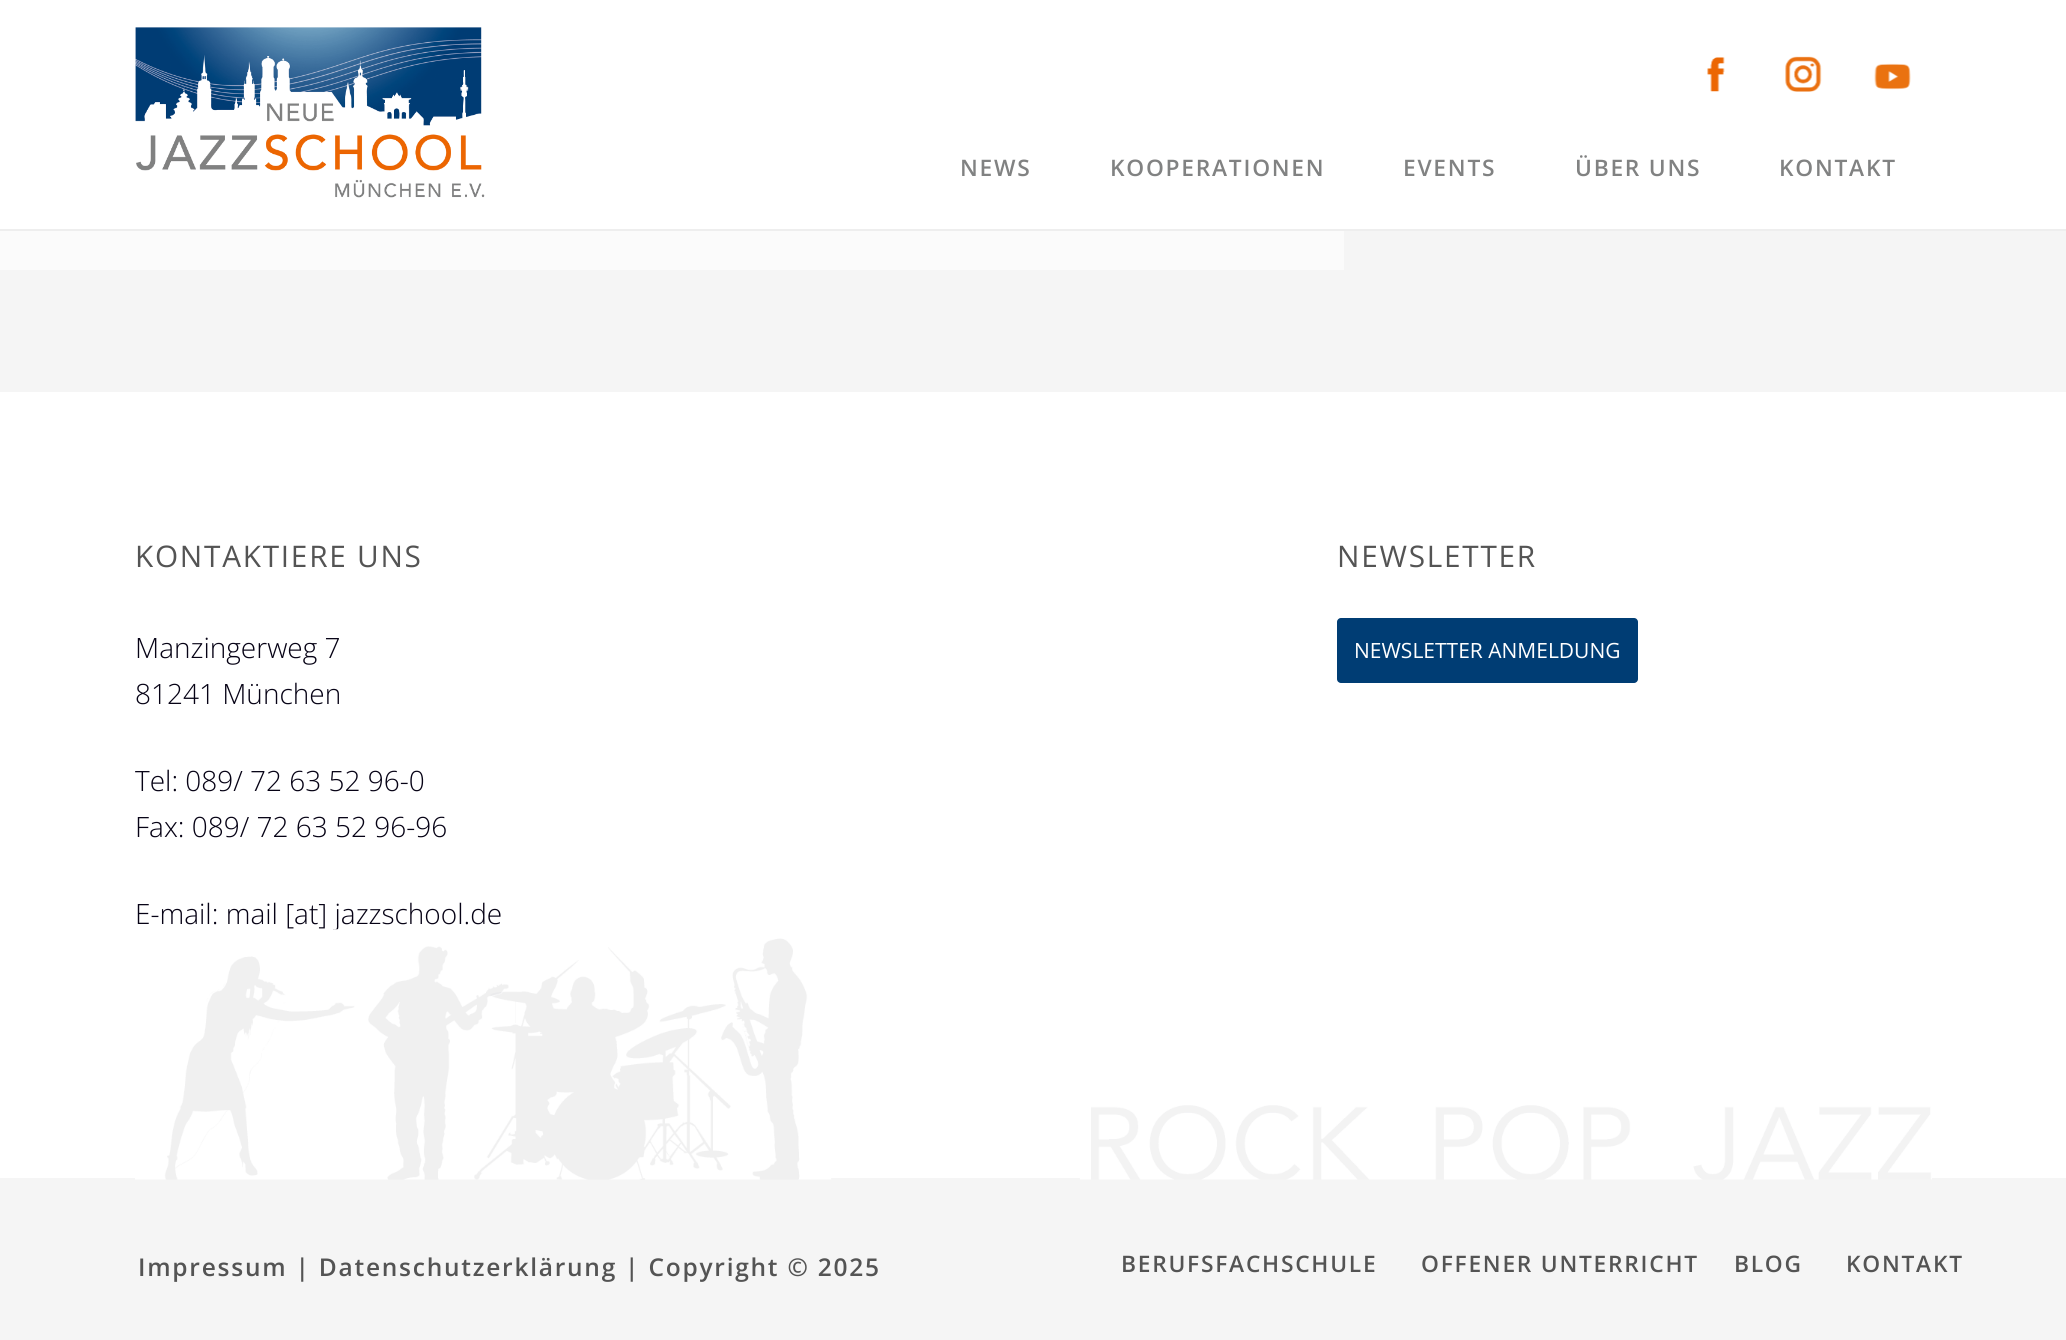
#include <cairo/cairo.h>
#include <math.h>
#include <stddef.h>

static cairo_t *cr;

static void use_color(int r, int g, int b) {
  cairo_set_source_rgb(cr, r / 255.0, g / 255.0, b / 255.0);
}

static void text(double x, double y, const char *s, const char *family, double size, int italic, int bold, int r, int g, int b) {
  cairo_select_font_face(cr, family, italic ? CAIRO_FONT_SLANT_ITALIC : CAIRO_FONT_SLANT_NORMAL,
    bold ? CAIRO_FONT_WEIGHT_BOLD : CAIRO_FONT_WEIGHT_NORMAL);
  cairo_set_font_size(cr, size);
  use_color(r, g, b);
  cairo_move_to(cr, x, y);
  cairo_show_text(cr, s);
}

static void spaced_text(double x, double y, const char *s, double letter, double word) {
  cairo_move_to(cr, x, y);
  while (*s) {
    char ch[5] = {0};
    int n = 0;
    do ch[n++] = *s++; while ((*s & 0xC0) == 0x80);
    cairo_show_text(cr, ch);
    cairo_rel_move_to(cr, letter + word * (*ch == ' '), 0);
  }
}

static void box(double x, double y, double w, double h, int r, int g, int b) {
  use_color(r, g, b);
  cairo_rectangle(cr, x, y, w, h);
  cairo_fill(cr);
}

static void round_rect(double x, double y, double w, double h, double r) {
  cairo_new_sub_path(cr);
  cairo_arc(cr, x + w - r, y + h - r, r, 0, M_PI / 2);
  cairo_arc(cr, x + r, y + h - r, r, M_PI / 2, M_PI);
  cairo_arc(cr, x + r, y + r, r, M_PI, 1.5 * M_PI);
  cairo_arc(cr, x + w - r, y + r, r, 1.5 * M_PI, 2 * M_PI);
  cairo_close_path(cr);
}

static void picture(const char *path, double x, double y, double w, double h) {
  cairo_surface_t *image = cairo_image_surface_create_from_png(path);
  cairo_save(cr);
  cairo_set_source_surface(cr, image, x, y);
  cairo_rectangle(cr, x, y, w, h);
  cairo_fill(cr);
  cairo_restore(cr);
  cairo_surface_destroy(image);
}

static void draw(void) {
  use_color(255, 255, 255);
  cairo_paint(cr);
  box(0, 229, 2066, 2, 238, 238, 238);
  picture("img_01.png", 135, 27, 350, 171);
  picture("img_02.png", 1707, 57, 18, 35);
  picture("img_03.png", 1785, 56, 37, 36);
  picture("img_04.png", 1874, 63, 37, 27);
  box(0, 231, 2066, 161, 245, 245, 245);
  box(0, 231, 1344, 39, 251, 251, 251);
  use_color(0, 61, 116);
  round_rect(1337, 618, 301, 65, 4);
  cairo_fill(cr);
  box(0, 1178, 2066, 162, 245, 245, 245);
  cairo_select_font_face(cr, "Open Sans SemiBold", CAIRO_FONT_SLANT_NORMAL, CAIRO_FONT_WEIGHT_NORMAL);
  cairo_set_font_size(cr, 22.75);
  use_color(129, 130, 130);
  spaced_text(960, 176, "NEWS", 1.75, 0);
  spaced_text(1110, 176, "KOOPERATIONEN", 1.75, 0);
  spaced_text(1403, 176, "EVENTS", 1.75, 0);
  spaced_text(1575, 176, "ÜBER UNS", 1.75, 0);
  spaced_text(1779, 176, "KONTAKT", 1.75, 0);
  cairo_select_font_face(cr, "Open Sans", CAIRO_FONT_SLANT_NORMAL, CAIRO_FONT_WEIGHT_NORMAL);
  cairo_set_font_size(cr, 29.75);
  use_color(84, 84, 84);
  spaced_text(135, 567, "KONTAKTIERE UNS", 1.75, 0);
  text(135, 658, "Manzingerweg 7", "Open Sans Light", 28, 0, 0, 6, 2, 21);
  text(135, 704, "81241 München", "Open Sans Light", 28, 0, 0, 6, 2, 21);
  text(135, 791, "Tel: 089/ 72 63 52 96-0", "Open Sans Light", 28, 0, 0, 6, 2, 21);
  text(135, 837, "Fax: 089/ 72 63 52 96-96", "Open Sans Light", 28, 0, 0, 6, 2, 21);
  text(135, 924, "E-mail: mail [at] jazzschool.de", "Open Sans Light", 28, 0, 0, 6, 2, 21);
  cairo_select_font_face(cr, "Open Sans", CAIRO_FONT_SLANT_NORMAL, CAIRO_FONT_WEIGHT_NORMAL);
  cairo_set_font_size(cr, 29.75);
  use_color(84, 84, 84);
  spaced_text(1337, 567, "NEWSLETTER", 1.75, 0);
  text(1354, 658, "NEWSLETTER ANMELDUNG", "Open Sans", 21, 0, 0, 255, 255, 255);
  picture("img_05.png", 135, 929, 1797, 251);
  cairo_select_font_face(cr, "Open Sans SemiBold", CAIRO_FONT_SLANT_NORMAL, CAIRO_FONT_WEIGHT_NORMAL);
  cairo_set_font_size(cr, 24.5);
  use_color(84, 84, 84);
  spaced_text(138, 1276, "Impressum | Datenschutzerklärung | Copyright © 2025", 1.75, 0);
  cairo_set_font_size(cr, 22.75);
  spaced_text(1121, 1272, "BERUFSFACHSCHULE", 1.75, 0);
  spaced_text(1421, 1272, "OFFENER UNTERRICHT", 1.75, 0);
  spaced_text(1734, 1272, "BLOG", 1.75, 0);
  spaced_text(1846, 1272, "KONTAKT", 1.75, 0);
}

int main(void) {
  cairo_surface_t *surface = cairo_image_surface_create(CAIRO_FORMAT_RGB24, 2066, 1340);
  cr = cairo_create(surface);
  cairo_font_options_t *options = cairo_font_options_create();
  cairo_font_options_set_hint_metrics(options, CAIRO_HINT_METRICS_OFF);
  cairo_font_options_set_hint_style(options, CAIRO_HINT_STYLE_NONE);
  cairo_set_font_options(cr, options);
  cairo_set_miter_limit(cr, 4);
  draw();
  cairo_surface_write_to_png(surface, "out.png");
  cairo_font_options_destroy(options);
  cairo_destroy(cr);
  cairo_surface_destroy(surface);
  return 0;
}
